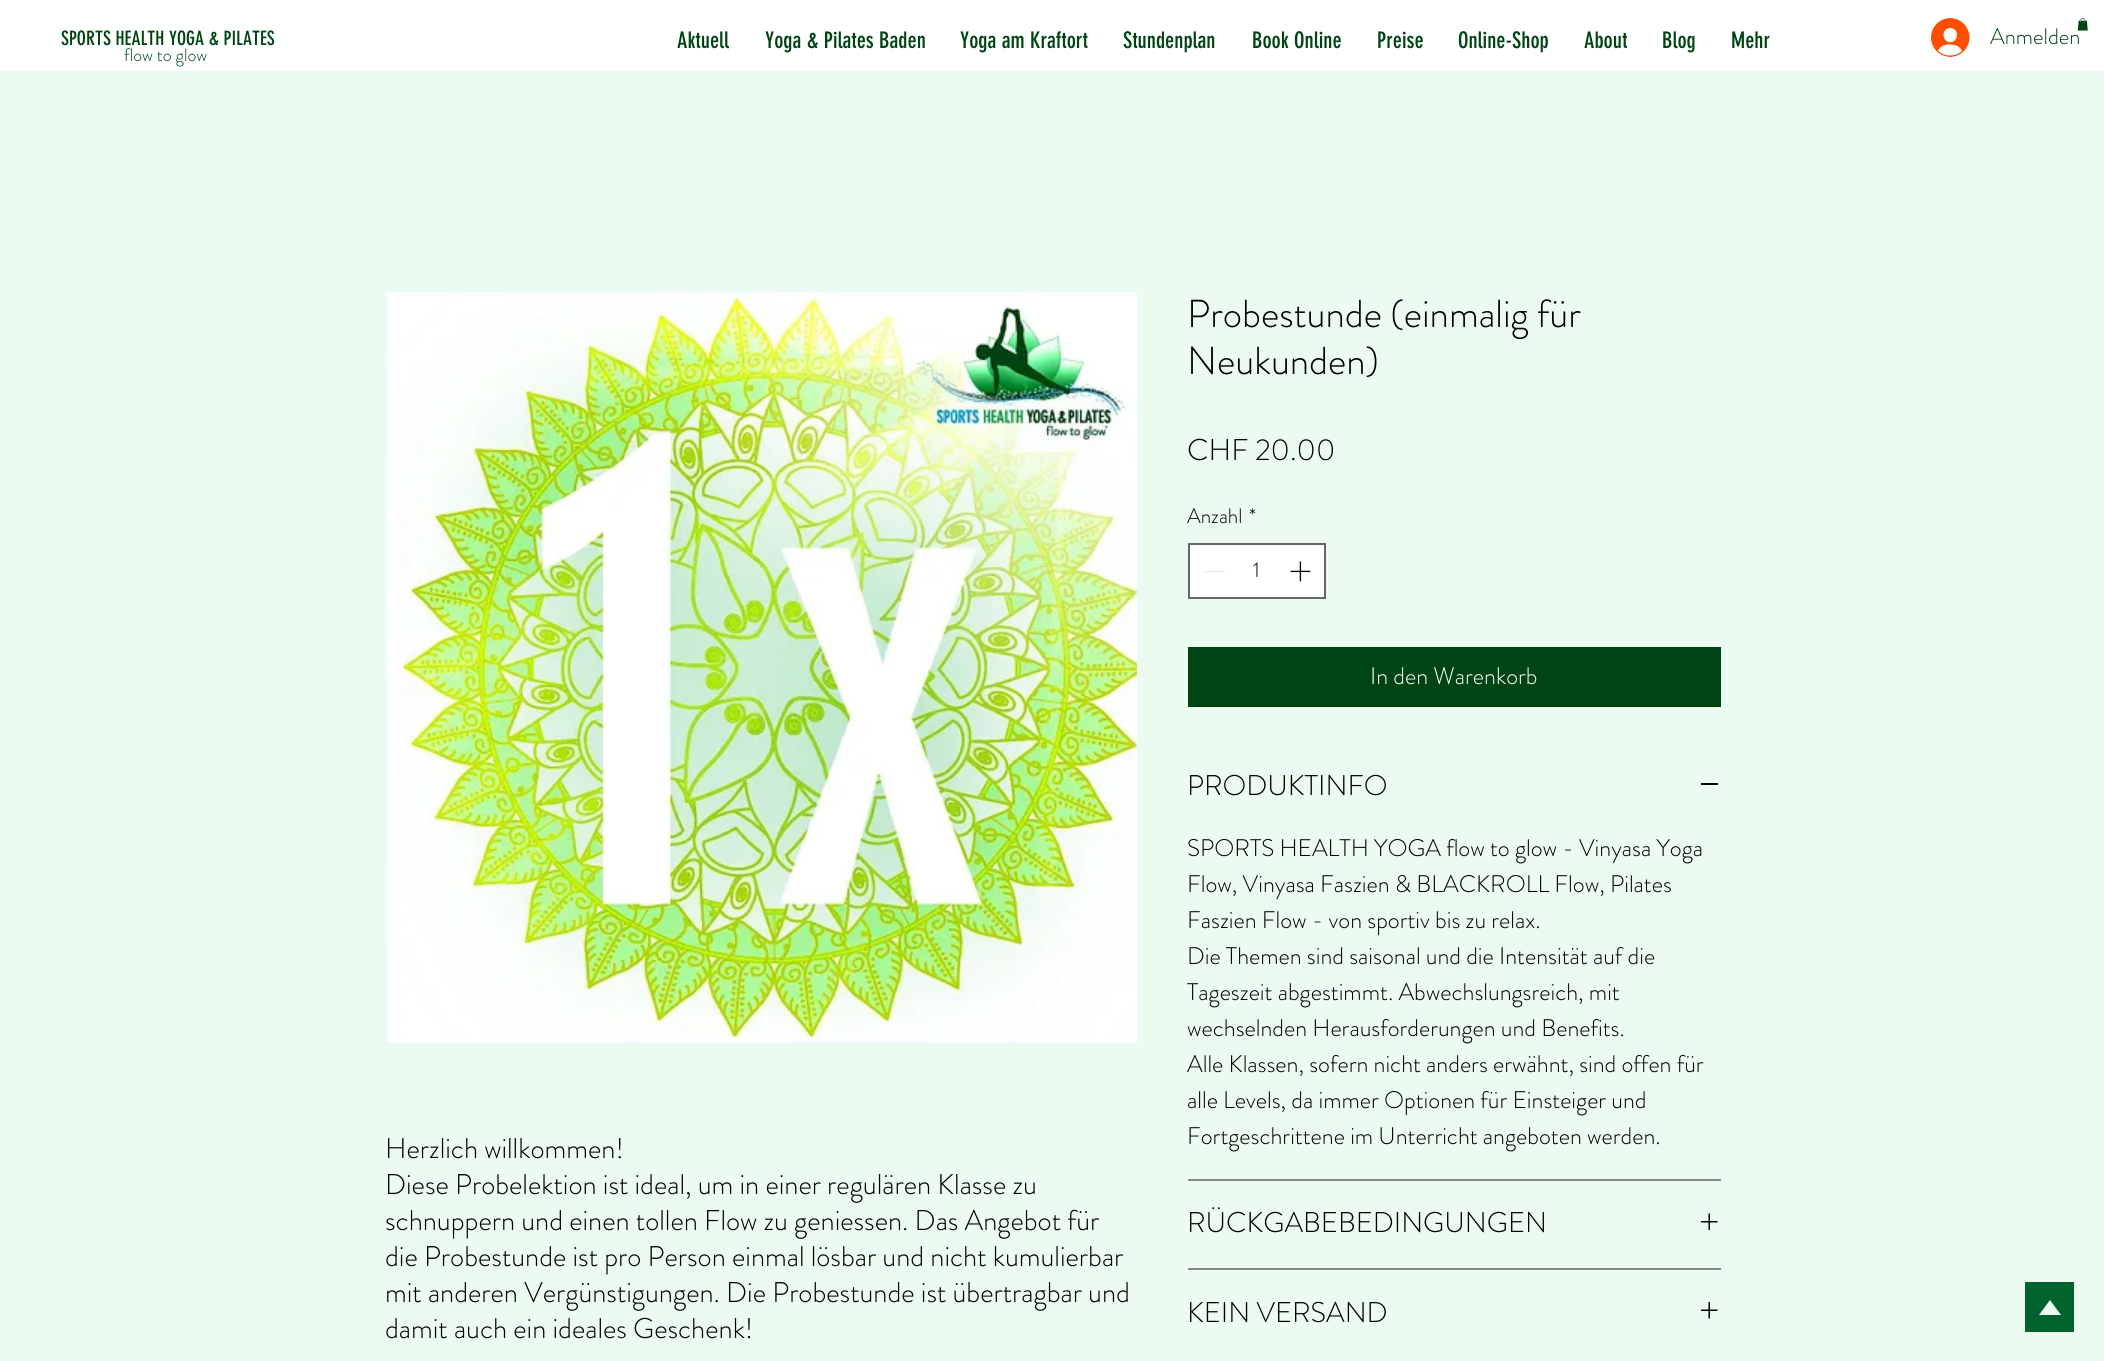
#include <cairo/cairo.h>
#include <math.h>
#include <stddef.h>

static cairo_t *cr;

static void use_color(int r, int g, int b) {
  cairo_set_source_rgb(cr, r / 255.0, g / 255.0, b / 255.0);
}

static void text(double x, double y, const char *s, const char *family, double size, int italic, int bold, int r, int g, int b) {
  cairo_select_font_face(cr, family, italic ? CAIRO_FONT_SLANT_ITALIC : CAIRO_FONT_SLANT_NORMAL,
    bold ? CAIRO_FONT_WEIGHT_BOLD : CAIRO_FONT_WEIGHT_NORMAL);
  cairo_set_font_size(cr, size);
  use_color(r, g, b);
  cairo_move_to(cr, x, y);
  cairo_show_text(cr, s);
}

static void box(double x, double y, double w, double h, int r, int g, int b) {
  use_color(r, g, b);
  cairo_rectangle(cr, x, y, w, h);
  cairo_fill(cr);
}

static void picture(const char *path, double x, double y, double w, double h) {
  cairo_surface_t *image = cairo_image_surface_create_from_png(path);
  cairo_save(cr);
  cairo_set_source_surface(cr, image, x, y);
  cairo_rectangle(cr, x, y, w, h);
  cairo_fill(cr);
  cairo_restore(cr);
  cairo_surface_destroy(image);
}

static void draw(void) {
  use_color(236, 251, 240);
  cairo_paint(cr);
  box(0, 0, 2104, 71, 255, 255, 255);
  picture("img_02.png", 1931, 18, 39, 39);
  cairo_rectangle(cr, 387, 292, 751, 751);
  use_color(237, 247, 255);
  cairo_stroke(cr);
  picture("img_03.png", 387, 292, 750, 751);
  use_color(255, 255, 255);
  cairo_rectangle(cr, 1189, 544, 136, 54);
  cairo_fill_preserve(cr);
  use_color(102, 102, 102);
  cairo_stroke(cr);
  box(1205, 571, 20, 1, 227, 227, 227);
  picture("img_04.png", 1290, 561, 21, 21);
  box(1188, 647, 533, 60, 0, 68, 19);
  box(1188, 1179, 533, 2, 132, 136, 140);
  box(1701, 783, 17, 2, 0, 0, 0);
  box(1188, 1268, 533, 2, 132, 136, 140);
  picture("img_05.png", 1701, 1213, 17, 17);
  picture("img_06.png", 1701, 1302, 17, 17);
  use_color(0, 99, 46);
  cairo_new_path(cr);
  cairo_move_to(cr, 2025, 1282);
  cairo_line_to(cr, 2025, 1332);
  cairo_line_to(cr, 2074, 1332);
  cairo_line_to(cr, 2074, 1282);
  cairo_close_path(cr);
  cairo_move_to(cr, 2039, 1315);
  cairo_line_to(cr, 2050, 1300);
  cairo_line_to(cr, 2061, 1315);
  cairo_close_path(cr);
  cairo_fill(cr);
  text(61, 45, "SPORTS HEALTH YOGA & PILATES", "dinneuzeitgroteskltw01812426", 19.5, 0, 0, 0, 68, 19);
  text(124, 61, "flow to glow", "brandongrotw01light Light", 18, 0, 0, 0, 68, 19);
  text(677, 48, "Aktuell", "dinneuzeitgroteskltw01812426", 22.5, 0, 0, 0, 68, 19);
  text(765, 48, "Yoga & Pilates Baden", "dinneuzeitgroteskltw01812426", 22.5, 0, 0, 0, 68, 19);
  text(960, 48, "Yoga am Kraftort", "dinneuzeitgroteskltw01812426", 22.5, 0, 0, 0, 68, 19);
  text(1123, 48, "Stundenplan", "dinneuzeitgroteskltw01812426", 22.5, 0, 0, 0, 68, 19);
  text(1252, 48, "Book Online", "dinneuzeitgroteskltw01812426", 22.5, 0, 0, 0, 68, 19);
  text(1377, 48, "Preise", "dinneuzeitgroteskltw01812426", 22.5, 0, 0, 0, 68, 19);
  text(1458, 48, "Online-Shop", "dinneuzeitgroteskltw01812426", 22.5, 0, 0, 0, 68, 19);
  text(1584, 48, "About", "dinneuzeitgroteskltw01812426", 22.5, 0, 0, 0, 68, 19);
  text(1662, 48, "Blog", "dinneuzeitgroteskltw01812426", 22.5, 0, 0, 0, 68, 19);
  text(1731, 48, "Mehr", "dinneuzeitgroteskltw01812426", 22.5, 0, 0, 0, 68, 19);
  text(1990, 44, "Anmelden", "brandongrotw01light Light", 22.5, 0, 0, 0, 68, 19);
  picture("img_01.png", 2077, 18, 11, 13);
  text(385, 1158, "Herzlich willkommen!", "brandongrotw01light Light", 28.5, 0, 0, 0, 0, 0);
  text(385, 1194, "Diese Probelektion ist ideal, um in einer regulären Klasse zu", "brandongrotw01light Light", 28.5, 0, 0, 0, 0, 0);
  text(385, 1230, "schnuppern und einen tollen Flow zu geniessen. Das Angebot für", "brandongrotw01light Light", 28.5, 0, 0, 0, 0, 0);
  text(385, 1266, "die Probestunde ist pro Person einmal lösbar und nicht kumulierbar", "brandongrotw01light Light", 28.5, 0, 0, 0, 0, 0);
  text(385, 1302, "mit anderen Vergünstigungen. Die Probestunde ist übertragbar und", "brandongrotw01light Light", 28.5, 0, 0, 0, 0, 0);
  text(385, 1338, "damit auch ein ideales Geschenk!", "brandongrotw01light Light", 28.5, 0, 0, 0, 0, 0);
  text(1187, 327, "Probestunde (einmalig für", "brandongrotw01light Light", 39, 0, 0, 0, 0, 0);
  text(1187, 374, "Neukunden)", "brandongrotw01light Light", 39, 0, 0, 0, 0, 0);
  text(1187, 460, "CHF 20.00", "brandongrotw01light Light", 30, 0, 0, 0, 0, 0);
  text(1187, 523, "Anzahl", "brandongrotw01light Light", 21, 0, 0, 0, 0, 0);
  text(1249, 523, "*", "brandongrotw01light Light", 21, 0, 0, 0, 0, 0);
  text(1253, 577, "1", "brandongrotw01light Light", 21, 0, 0, 0, 0, 0);
  text(1370, 684, "In den Warenkorb", "brandongrotw01light Light", 24, 0, 0, 255, 255, 255);
  text(1187, 795, "PRODUKTINFO", "brandongrotw01light Light", 28.5, 0, 0, 0, 0, 0);
  text(1187, 856, "SPORTS HEALTH YOGA flow to glow - Vinyasa Yoga", "brandongrotw01light Light", 24, 0, 0, 0, 0, 0);
  text(1187, 892, "Flow, Vinyasa Faszien & BLACKROLL Flow, Pilates", "brandongrotw01light Light", 24, 0, 0, 0, 0, 0);
  text(1187, 928, "Faszien Flow - von sportiv bis zu relax.", "brandongrotw01light Light", 24, 0, 0, 0, 0, 0);
  text(1187, 964, "Die Themen sind saisonal und die Intensität auf die", "brandongrotw01light Light", 24, 0, 0, 0, 0, 0);
  text(1187, 1000, "Tageszeit abgestimmt. Abwechslungsreich, mit", "brandongrotw01light Light", 24, 0, 0, 0, 0, 0);
  text(1187, 1036, "wechselnden Herausforderungen und Benefits.", "brandongrotw01light Light", 24, 0, 0, 0, 0, 0);
  text(1187, 1072, "Alle Klassen, sofern nicht anders erwähnt, sind offen für", "brandongrotw01light Light", 24, 0, 0, 0, 0, 0);
  text(1187, 1108, "alle Levels, da immer Optionen für Einsteiger und", "brandongrotw01light Light", 24, 0, 0, 0, 0, 0);
  text(1187, 1144, "Fortgeschrittene im Unterricht angeboten werden.", "brandongrotw01light Light", 24, 0, 0, 0, 0, 0);
  text(1187, 1232, "RÜCKGABEBEDINGUNGEN", "brandongrotw01light Light", 28.5, 0, 0, 0, 0, 0);
  text(1187, 1322, "KEIN VERSAND", "brandongrotw01light Light", 28.5, 0, 0, 0, 0, 0);
}

int main(void) {
  cairo_surface_t *surface = cairo_image_surface_create(CAIRO_FORMAT_RGB24, 2104, 1361);
  cr = cairo_create(surface);
  cairo_font_options_t *options = cairo_font_options_create();
  cairo_font_options_set_hint_metrics(options, CAIRO_HINT_METRICS_OFF);
  cairo_font_options_set_hint_style(options, CAIRO_HINT_STYLE_NONE);
  cairo_set_font_options(cr, options);
  cairo_set_miter_limit(cr, 4);
  draw();
  cairo_surface_write_to_png(surface, "out.png");
  cairo_font_options_destroy(options);
  cairo_destroy(cr);
  cairo_surface_destroy(surface);
  return 0;
}
